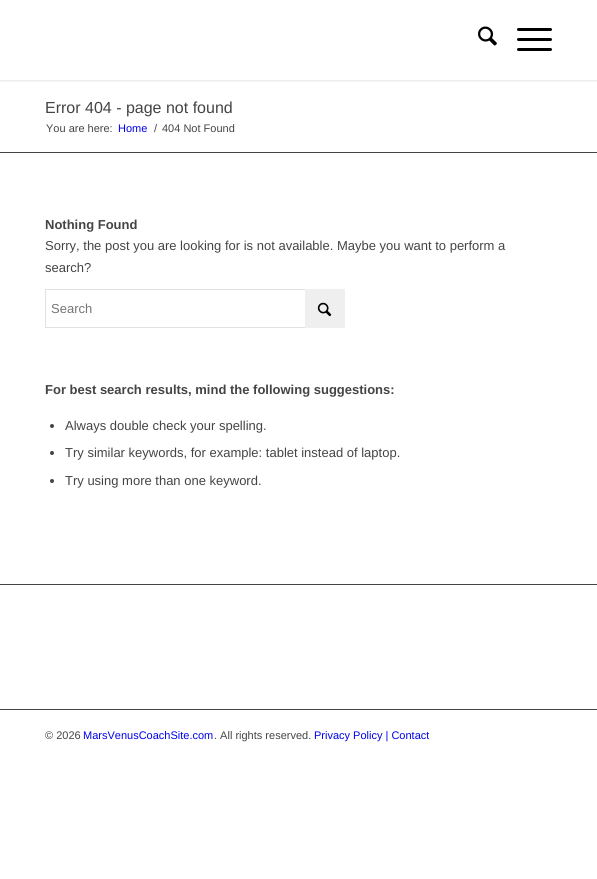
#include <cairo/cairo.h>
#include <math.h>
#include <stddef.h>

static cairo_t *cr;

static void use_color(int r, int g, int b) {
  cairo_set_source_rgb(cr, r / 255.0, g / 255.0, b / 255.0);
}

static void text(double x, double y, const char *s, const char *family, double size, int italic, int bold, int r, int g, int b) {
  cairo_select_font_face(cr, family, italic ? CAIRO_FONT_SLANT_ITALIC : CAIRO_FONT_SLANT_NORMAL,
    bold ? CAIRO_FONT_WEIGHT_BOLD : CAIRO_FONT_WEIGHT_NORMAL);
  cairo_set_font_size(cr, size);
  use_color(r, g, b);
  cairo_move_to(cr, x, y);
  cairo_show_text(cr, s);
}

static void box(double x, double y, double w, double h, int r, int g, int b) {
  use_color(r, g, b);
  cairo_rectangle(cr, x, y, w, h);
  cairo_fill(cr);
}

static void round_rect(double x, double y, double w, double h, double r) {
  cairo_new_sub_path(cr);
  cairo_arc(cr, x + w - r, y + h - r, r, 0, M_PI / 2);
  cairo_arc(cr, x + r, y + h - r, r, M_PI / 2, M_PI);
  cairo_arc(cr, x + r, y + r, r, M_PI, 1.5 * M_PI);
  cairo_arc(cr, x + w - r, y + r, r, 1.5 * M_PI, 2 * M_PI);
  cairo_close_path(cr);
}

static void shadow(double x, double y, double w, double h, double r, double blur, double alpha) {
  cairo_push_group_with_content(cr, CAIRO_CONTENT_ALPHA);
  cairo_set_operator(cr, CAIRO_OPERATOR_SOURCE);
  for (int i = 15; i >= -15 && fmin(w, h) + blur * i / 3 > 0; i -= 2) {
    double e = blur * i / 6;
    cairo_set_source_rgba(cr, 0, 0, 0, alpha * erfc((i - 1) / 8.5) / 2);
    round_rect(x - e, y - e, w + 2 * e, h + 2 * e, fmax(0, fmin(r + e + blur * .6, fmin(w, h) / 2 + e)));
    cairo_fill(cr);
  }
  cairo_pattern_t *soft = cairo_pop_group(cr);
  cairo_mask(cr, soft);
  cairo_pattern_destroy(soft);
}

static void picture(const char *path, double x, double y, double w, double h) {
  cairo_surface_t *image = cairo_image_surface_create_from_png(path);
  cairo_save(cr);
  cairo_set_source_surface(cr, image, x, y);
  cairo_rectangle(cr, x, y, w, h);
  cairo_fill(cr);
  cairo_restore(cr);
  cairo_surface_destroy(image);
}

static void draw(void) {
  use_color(255, 255, 255);
  cairo_paint(cr);
  cairo_save(cr);
  cairo_rectangle(cr, 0, 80, 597, 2);
  cairo_clip(cr);
  use_color(0, 0, 0);
  shadow(-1, -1, 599, 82, 0, 1, 0.1);
  cairo_restore(cr);
  picture("img_01.png", 478, 26, 19, 20);
  use_color(0, 0, 0);
  round_rect(517, 38, 35, 3, 1.5);
  cairo_fill(cr);
  round_rect(517, 28, 35, 3, 1.5);
  cairo_fill(cr);
  round_rect(517, 48, 35, 3, 1.5);
  cairo_fill(cr);
  box(0, 152, 597, 1, 68, 68, 68);
  cairo_rectangle(cr, 45.5, 289.5, 299, 38);
  use_color(225, 225, 225);
  cairo_set_line_width(cr, 1);
  cairo_stroke(cr);
  box(305, 289, 40, 39, 239, 239, 239);
  picture("img_02.png", 317, 302, 15, 15);
  use_color(68, 68, 68);
  cairo_arc(cr, 52, 426, 2, 0, 2 * M_PI);
  cairo_fill(cr);
  cairo_arc(cr, 52, 453, 2, 0, 2 * M_PI);
  cairo_fill(cr);
  cairo_arc(cr, 52, 481, 2, 0, 2 * M_PI);
  cairo_fill(cr);
  box(0, 584, 597, 1, 68, 68, 68);
  box(0, 709, 597, 1, 68, 68, 68);
  text(45, 113, "Error 404 - page not found", "Liberation Sans", 16, 0, 0, 68, 68, 68);
  text(46, 132, "You are here:", "Liberation Sans", 11, 0, 0, 68, 68, 68);
  text(118, 132, "Home", "Liberation Sans", 11, 0, 0, 0, 0, 238);
  text(154, 132, "/", "Liberation Sans", 11, 0, 0, 68, 68, 68);
  text(162, 132, "404 Not Found", "Liberation Sans", 11, 0, 0, 68, 68, 68);
  text(45, 229, "Nothing Found", "Liberation Sans", 13, 0, 1, 68, 68, 68);
  text(45, 250, "Sorry, the post you are looking for is not available. Maybe you want to perform a", "Liberation Sans", 13, 0, 0, 68, 68, 68);
  text(45, 272, "search?", "Liberation Sans", 13, 0, 0, 68, 68, 68);
  text(51, 313, "Search", "Liberation Sans", 13, 0, 0, 117, 117, 117);
  text(45, 394, "For best search results, mind the following suggestions:", "Liberation Sans", 13, 0, 1, 68, 68, 68);
  text(65, 430, "Always double check your spelling.", "Liberation Sans", 13, 0, 0, 68, 68, 68);
  text(65, 457, "Try similar keywords, for example: tablet instead of laptop.", "Liberation Sans", 13, 0, 0, 68, 68, 68);
  text(65, 485, "Try using more than one keyword.", "Liberation Sans", 13, 0, 0, 68, 68, 68);
  text(45, 739, "© 2026", "Liberation Sans", 11, 0, 0, 68, 68, 68);
  text(83, 739, "MarsVenusCoachSite.com", "Liberation Sans", 11, 0, 0, 0, 0, 238);
  text(214, 739, ". All rights reserved.", "Liberation Sans", 11, 0, 0, 68, 68, 68);
  text(314, 739, "Privacy Policy | Contact", "Liberation Sans", 11, 0, 0, 0, 0, 238);
}

int main(void) {
  cairo_surface_t *surface = cairo_image_surface_create(CAIRO_FORMAT_RGB24, 597, 879);
  cr = cairo_create(surface);
  cairo_font_options_t *options = cairo_font_options_create();
  cairo_font_options_set_hint_metrics(options, CAIRO_HINT_METRICS_OFF);
  cairo_font_options_set_hint_style(options, CAIRO_HINT_STYLE_NONE);
  cairo_set_font_options(cr, options);
  cairo_set_miter_limit(cr, 4);
  draw();
  cairo_surface_write_to_png(surface, "out.png");
  cairo_font_options_destroy(options);
  cairo_destroy(cr);
  cairo_surface_destroy(surface);
  return 0;
}
